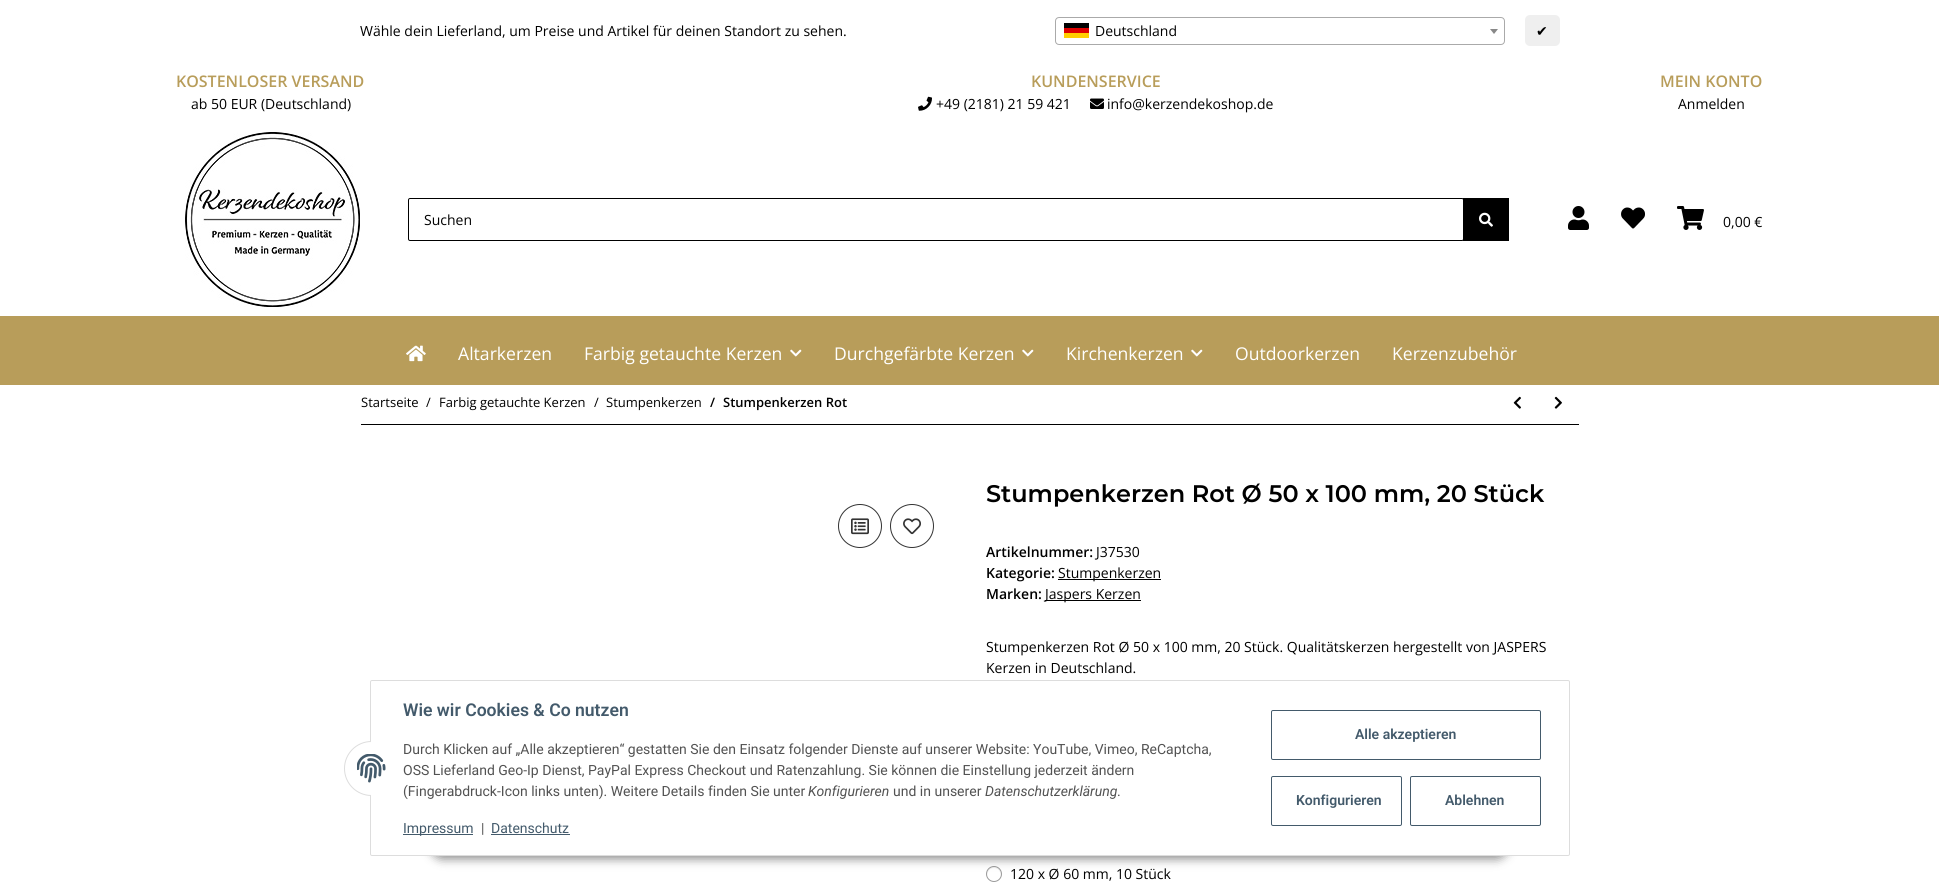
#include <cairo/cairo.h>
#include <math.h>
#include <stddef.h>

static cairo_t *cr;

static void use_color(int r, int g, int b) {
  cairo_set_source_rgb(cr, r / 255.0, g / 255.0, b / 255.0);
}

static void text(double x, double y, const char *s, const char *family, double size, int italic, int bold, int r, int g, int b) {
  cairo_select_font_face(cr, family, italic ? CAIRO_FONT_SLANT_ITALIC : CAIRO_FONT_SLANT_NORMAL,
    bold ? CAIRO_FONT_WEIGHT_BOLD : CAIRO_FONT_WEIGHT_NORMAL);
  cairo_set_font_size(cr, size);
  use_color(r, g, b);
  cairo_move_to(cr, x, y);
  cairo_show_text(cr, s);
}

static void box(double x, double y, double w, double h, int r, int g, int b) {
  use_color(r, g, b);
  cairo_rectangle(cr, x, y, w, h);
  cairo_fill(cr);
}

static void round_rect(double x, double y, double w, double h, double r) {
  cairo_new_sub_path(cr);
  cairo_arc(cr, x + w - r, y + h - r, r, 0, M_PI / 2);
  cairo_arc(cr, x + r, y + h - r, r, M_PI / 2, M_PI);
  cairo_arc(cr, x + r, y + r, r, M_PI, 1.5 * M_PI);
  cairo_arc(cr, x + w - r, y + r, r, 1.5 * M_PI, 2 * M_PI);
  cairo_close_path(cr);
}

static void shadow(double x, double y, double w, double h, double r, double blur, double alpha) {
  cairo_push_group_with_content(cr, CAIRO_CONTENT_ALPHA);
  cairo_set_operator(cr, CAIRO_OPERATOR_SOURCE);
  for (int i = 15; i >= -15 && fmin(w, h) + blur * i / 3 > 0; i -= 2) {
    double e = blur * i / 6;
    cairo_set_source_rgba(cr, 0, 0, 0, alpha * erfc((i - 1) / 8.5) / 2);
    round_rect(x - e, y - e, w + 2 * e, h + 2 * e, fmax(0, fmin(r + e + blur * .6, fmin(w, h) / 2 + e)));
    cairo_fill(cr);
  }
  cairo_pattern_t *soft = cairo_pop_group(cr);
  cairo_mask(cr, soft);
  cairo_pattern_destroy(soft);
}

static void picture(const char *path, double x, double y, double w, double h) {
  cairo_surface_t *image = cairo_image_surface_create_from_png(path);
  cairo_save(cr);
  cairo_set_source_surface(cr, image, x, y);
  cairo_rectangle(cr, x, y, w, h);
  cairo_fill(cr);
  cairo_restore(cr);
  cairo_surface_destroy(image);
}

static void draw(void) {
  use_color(255, 255, 255);
  cairo_paint(cr);
  round_rect(1055.5, 17.5, 449, 27, 3.5);
  use_color(170, 170, 170);
  cairo_set_line_width(cr, 1);
  cairo_stroke(cr);
  box(1064, 23, 25, 5, 0, 0, 0);
  box(1064, 28, 25, 5, 221, 0, 0);
  box(1064, 33, 25, 5, 255, 206, 0);
  use_color(136, 136, 136);
  cairo_new_path(cr);
  cairo_move_to(cr, 1490, 29);
  cairo_line_to(cr, 1498, 29);
  cairo_line_to(cr, 1494, 34);
  cairo_close_path(cr);
  cairo_fill(cr);
  use_color(239, 239, 239);
  round_rect(1525, 15, 35, 31, 5);
  cairo_fill(cr);
  picture("img_01.png", 918, 96, 14, 15);
  picture("img_02.png", 1090, 98, 14, 11);
  picture("img_03.png", 185, 132, 175, 175);
  round_rect(408.5, 198.5, 1055, 42, 1.5);
  use_color(0, 0, 0);
  cairo_stroke(cr);
  box(1463, 198, 46, 43, 0, 0, 0);
  picture("img_04.png", 1479, 212, 14, 15);
  picture("img_05.png", 1568, 206, 21, 24);
  picture("img_06.png", 1621, 207, 24, 22);
  picture("img_07.png", 1677, 206, 27, 24);
  box(0, 316, 1939, 69, 184, 157, 90);
  picture("img_08.png", 406, 345, 20, 17);
  picture("img_09.png", 790, 349, 12, 8);
  picture("img_09.png", 1022, 349, 12, 8);
  picture("img_09.png", 1191, 349, 12, 8);
  box(361, 424, 1218, 1, 0, 0, 0);
  picture("img_10.png", 1513, 396, 8, 13);
  picture("img_11.png", 1554, 396, 8, 13);
  cairo_arc(cr, 860, 526, 21.5, 0, 2 * M_PI);
  use_color(51, 51, 51);
  cairo_stroke(cr);
  picture("img_12.png", 851, 518, 18, 17);
  cairo_arc(cr, 912, 526, 21.5, 0, 2 * M_PI);
  cairo_stroke(cr);
  picture("img_13.png", 903, 518, 18, 17);
  box(1058, 579, 103, 1, 0, 0, 0);
  box(1045, 600, 96, 1, 0, 0, 0);
  use_color(236, 236, 236);
  cairo_new_path(cr);
  cairo_move_to(cr, 994, 868);
  cairo_curve_to(cr, 999, 868, 1001, 872.5, 1000.5, 876);
  cairo_curve_to(cr, 1003.5, 868, 991, 863, 987.5, 871.5);
  cairo_curve_to(cr, 987, 873, 987, 874.5, 987.5, 876);
  cairo_curve_to(cr, 987, 872.5, 989, 868, 994, 868);
  cairo_close_path(cr);
  cairo_fill(cr);
  cairo_arc(cr, 994, 874, 7.5, 0, 2 * M_PI);
  use_color(155, 155, 155);
  cairo_stroke(cr);
  use_color(0, 0, 0);
  shadow(430, 827, 1079, 32, 16, 5, 0.45);
  use_color(255, 255, 255);
  round_rect(370.5, 680.5, 1199, 175, 1.5);
  cairo_fill_preserve(cr);
  use_color(221, 221, 221);
  cairo_stroke(cr);
  use_color(255, 255, 255);
  cairo_arc(cr, 371.5, 768.5, 27, 0, 2 * M_PI);
  cairo_fill_preserve(cr);
  use_color(221, 221, 221);
  cairo_stroke(cr);
  box(371, 741, 28, 55, 255, 255, 255);
  picture("img_14.png", 357, 754, 29, 29);
  box(403, 834, 70, 1, 67, 90, 107);
  box(491, 834, 79, 1, 67, 90, 107);
  round_rect(1271.5, 710.5, 269, 49, 1.5);
  cairo_stroke(cr);
  round_rect(1271.5, 776.5, 130, 49, 1.5);
  cairo_stroke(cr);
  round_rect(1410.5, 776.5, 130, 49, 1.5);
  cairo_stroke(cr);
  text(360, 36, "Wähle dein Lieferland, um Preise und Artikel für deinen Standort zu sehen.", "Open Sans", 14, 0, 0, 0, 0, 0);
  text(1095, 36, "Deutschland", "Open Sans", 14, 0, 0, 0, 0, 0);
  text(1536, 36, "✔", "DejaVu Sans", 14, 0, 0, 0, 0, 0);
  text(176, 87, "KOSTENLOSER VERSAND", "Open Sans SemiBold", 16, 0, 0, 184, 157, 90);
  text(191, 109, "ab 50 EUR (Deutschland)", "Open Sans", 14, 0, 0, 0, 0, 0);
  text(1031, 87, "KUNDENSERVICE", "Open Sans SemiBold", 16, 0, 0, 184, 157, 90);
  text(936, 109, "+49 (2181) 21 59 421", "Open Sans", 14, 0, 0, 0, 0, 0);
  text(1107, 109, "info@kerzendekoshop.de", "Open Sans", 14, 0, 0, 0, 0, 0);
  text(1660, 87, "MEIN KONTO", "Open Sans SemiBold", 16, 0, 0, 184, 157, 90);
  text(1678, 109, "Anmelden", "Open Sans", 14, 0, 0, 0, 0, 0);
  text(424, 225, "Suchen", "Open Sans", 14, 0, 0, 0, 0, 0);
  text(1723, 227, "0,00 €", "Open Sans", 14, 0, 0, 0, 0, 0);
  text(458, 360, "Altarkerzen", "Open Sans", 17.6, 0, 0, 255, 255, 255);
  text(584, 360, "Farbig getauchte Kerzen", "Open Sans", 17.6, 0, 0, 255, 255, 255);
  text(834, 360, "Durchgefärbte Kerzen", "Open Sans", 17.6, 0, 0, 255, 255, 255);
  text(1066, 360, "Kirchenkerzen", "Open Sans", 17.6, 0, 0, 255, 255, 255);
  text(1235, 360, "Outdoorkerzen", "Open Sans", 17.6, 0, 0, 255, 255, 255);
  text(1392, 360, "Kerzenzubehör", "Open Sans", 17.6, 0, 0, 255, 255, 255);
  text(361, 407, "Startseite", "Open Sans", 13, 0, 0, 0, 0, 0);
  text(426, 407, "/", "Open Sans", 13, 0, 0, 0, 0, 0);
  text(439, 407, "Farbig getauchte Kerzen", "Open Sans", 13, 0, 0, 0, 0, 0);
  text(594, 407, "/", "Open Sans", 13, 0, 0, 0, 0, 0);
  text(606, 407, "Stumpenkerzen", "Open Sans", 13, 0, 0, 0, 0, 0);
  text(710, 407, "/", "Open Sans SemiBold", 13, 0, 0, 0, 0, 0);
  text(723, 407, "Stumpenkerzen Rot", "Open Sans SemiBold", 13, 0, 0, 0, 0, 0);
  text(986, 502, "Stumpenkerzen Rot Ø 50 x 100 mm, 20 Stück", "Montserrat SemiBold", 24, 0, 0, 0, 0, 0);
  text(986, 557, "Artikelnummer:", "Open Sans SemiBold", 14, 0, 0, 0, 0, 0);
  text(1096, 557, "J37530", "Open Sans", 14, 0, 0, 0, 0, 0);
  text(986, 578, "Kategorie:", "Open Sans SemiBold", 14, 0, 0, 0, 0, 0);
  text(1058, 578, "Stumpenkerzen", "Open Sans", 14, 0, 0, 0, 0, 0);
  text(986, 599, "Marken:", "Open Sans SemiBold", 14, 0, 0, 0, 0, 0);
  text(1045, 599, "Jaspers Kerzen", "Open Sans", 14, 0, 0, 0, 0, 0);
  text(986, 652, "Stumpenkerzen Rot Ø 50 x 100 mm, 20 Stück. Qualitätskerzen hergestellt von JASPERS", "Open Sans", 14, 0, 0, 0, 0, 0);
  text(986, 673, "Kerzen in Deutschland.", "Open Sans", 14, 0, 0, 0, 0, 0);
  text(1010, 879, "120 x Ø 60 mm, 10 Stück", "Open Sans", 14, 0, 0, 0, 0, 0);
  text(403, 716, "Wie wir Cookies & Co nutzen", "Roboto SemiBold", 17.6, 0, 0, 67, 90, 107);
  text(403, 754, "Durch Klicken auf „Alle akzeptieren“ gestatten Sie den Einsatz folgender Dienste auf unserer Website: YouTube, Vimeo, ReCaptcha,", "Roboto", 14, 0, 0, 82, 82, 82);
  text(403, 775, "OSS Lieferland Geo-Ip Dienst, PayPal Express Checkout und Ratenzahlung. Sie können die Einstellung jederzeit ändern", "Roboto", 14, 0, 0, 82, 82, 82);
  text(403, 796, "(Fingerabdruck-Icon links unten). Weitere Details finden Sie unter", "Roboto", 14, 0, 0, 82, 82, 82);
  text(808, 796, "Konfigurieren", "Roboto", 14, 1, 0, 82, 82, 82);
  text(893, 796, "und in unserer", "Roboto", 14, 0, 0, 82, 82, 82);
  text(985, 796, "Datenschutzerklärung", "Roboto", 14, 1, 0, 82, 82, 82);
  text(1117, 796, ".", "Roboto", 14, 0, 0, 82, 82, 82);
  text(403, 833, "Impressum", "Roboto", 14, 0, 0, 67, 90, 107);
  text(481, 833, "|", "Roboto", 14, 0, 0, 82, 82, 82);
  text(491, 833, "Datenschutz", "Roboto", 14, 0, 0, 67, 90, 107);
  text(1355, 739, "Alle akzeptieren", "Roboto SemiBold", 14, 0, 0, 67, 90, 107);
  text(1296, 805, "Konfigurieren", "Roboto SemiBold", 14, 0, 0, 67, 90, 107);
  text(1445, 805, "Ablehnen", "Roboto SemiBold", 14, 0, 0, 67, 90, 107);
}

int main(void) {
  cairo_surface_t *surface = cairo_image_surface_create(CAIRO_FORMAT_RGB24, 1939, 888);
  cr = cairo_create(surface);
  cairo_font_options_t *options = cairo_font_options_create();
  cairo_font_options_set_hint_metrics(options, CAIRO_HINT_METRICS_OFF);
  cairo_font_options_set_hint_style(options, CAIRO_HINT_STYLE_NONE);
  cairo_set_font_options(cr, options);
  cairo_set_miter_limit(cr, 4);
  draw();
  cairo_surface_write_to_png(surface, "out.png");
  cairo_font_options_destroy(options);
  cairo_destroy(cr);
  cairo_surface_destroy(surface);
  return 0;
}
